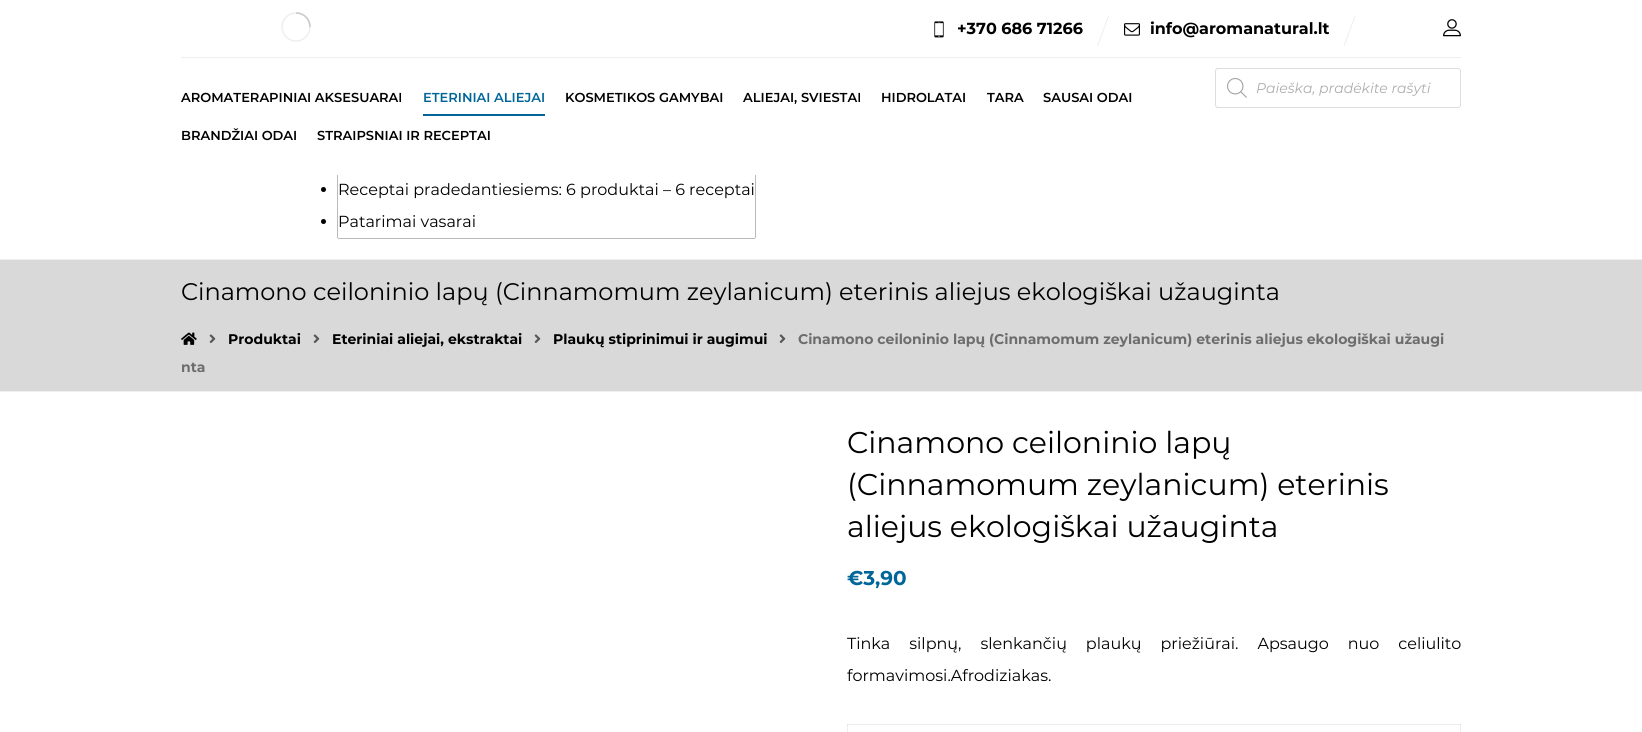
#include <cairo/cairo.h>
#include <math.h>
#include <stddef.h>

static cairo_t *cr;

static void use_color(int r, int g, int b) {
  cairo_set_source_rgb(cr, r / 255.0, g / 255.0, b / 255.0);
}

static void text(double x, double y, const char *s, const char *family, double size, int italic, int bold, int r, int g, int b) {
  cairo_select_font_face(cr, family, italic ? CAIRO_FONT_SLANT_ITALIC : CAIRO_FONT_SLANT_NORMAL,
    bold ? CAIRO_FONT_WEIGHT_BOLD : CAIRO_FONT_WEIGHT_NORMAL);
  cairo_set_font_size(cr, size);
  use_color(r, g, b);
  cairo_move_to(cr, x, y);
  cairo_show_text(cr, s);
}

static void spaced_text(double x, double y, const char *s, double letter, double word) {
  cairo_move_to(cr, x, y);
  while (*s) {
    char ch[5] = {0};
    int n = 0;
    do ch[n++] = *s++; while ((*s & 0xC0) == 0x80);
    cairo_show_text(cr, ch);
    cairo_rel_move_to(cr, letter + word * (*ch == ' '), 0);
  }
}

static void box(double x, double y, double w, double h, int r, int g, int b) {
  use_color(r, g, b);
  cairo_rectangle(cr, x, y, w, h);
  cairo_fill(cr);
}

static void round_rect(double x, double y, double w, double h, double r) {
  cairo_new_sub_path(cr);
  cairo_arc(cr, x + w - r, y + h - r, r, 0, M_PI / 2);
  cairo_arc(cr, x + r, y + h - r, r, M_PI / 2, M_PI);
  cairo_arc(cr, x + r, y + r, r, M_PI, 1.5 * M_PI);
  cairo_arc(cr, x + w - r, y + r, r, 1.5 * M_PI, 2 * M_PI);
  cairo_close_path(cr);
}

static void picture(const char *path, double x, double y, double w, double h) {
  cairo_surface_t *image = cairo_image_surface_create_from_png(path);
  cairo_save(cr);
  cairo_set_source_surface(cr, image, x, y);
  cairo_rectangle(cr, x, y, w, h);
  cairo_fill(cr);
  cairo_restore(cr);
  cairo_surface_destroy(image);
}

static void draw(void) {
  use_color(255, 255, 255);
  cairo_paint(cr);
  box(847, 724, 1, 8, 237, 237, 237);
  box(1460, 724, 1, 8, 237, 237, 237);
  box(181, 57, 1280, 1, 239, 239, 239);
  cairo_arc(cr, 296, 27, 14, 0, 2 * M_PI);
  cairo_set_line_width(cr, 1.6);
  cairo_stroke(cr);
  cairo_new_path(cr);
  cairo_move_to(cr, 310, 27);
  cairo_curve_to(cr, 310, 19, 304, 13, 296, 13);
  use_color(202, 202, 202);
  cairo_stroke(cr);
  picture("img_01.png", 934, 21, 10, 17);
  use_color(237, 237, 237);
  cairo_new_path(cr);
  cairo_move_to(cr, 1108, 16);
  cairo_line_to(cr, 1109, 16);
  cairo_line_to(cr, 1098, 46);
  cairo_line_to(cr, 1097, 46);
  cairo_close_path(cr);
  cairo_fill(cr);
  picture("img_02.png", 1124, 23, 16, 13);
  cairo_new_path(cr);
  cairo_move_to(cr, 1354.5, 16);
  cairo_line_to(cr, 1355.5, 16);
  cairo_line_to(cr, 1344.5, 46);
  cairo_line_to(cr, 1343.5, 46);
  cairo_close_path(cr);
  cairo_fill(cr);
  picture("img_03.png", 1443, 19, 18, 18);
  box(0, 259, 1642, 1, 239, 239, 239);
  round_rect(1215.5, 68.5, 245, 39, 2.5);
  use_color(221, 221, 221);
  cairo_set_line_width(cr, 1);
  cairo_stroke(cr);
  picture("img_04.png", 1227, 78, 20, 20);
  box(423, 114, 122, 2, 0, 102, 153);
  box(755, 175, 1, 63, 186, 186, 186);
  box(338, 238, 417, 1, 186, 186, 186);
  box(337, 175, 1, 63, 186, 186, 186);
  use_color(0, 0, 0);
  cairo_arc(cr, 323.5, 189.5, 2.5, 0, 2 * M_PI);
  cairo_fill(cr);
  cairo_arc(cr, 323.5, 221.5, 2.5, 0, 2 * M_PI);
  cairo_fill(cr);
  box(0, 260, 1642, 131, 217, 217, 217);
  box(0, 391, 1642, 1, 239, 239, 239);
  picture("img_05.png", 181, 332, 16, 13);
  picture("img_06.png", 209, 334, 7, 9);
  picture("img_06.png", 313, 334, 7, 9);
  picture("img_06.png", 534, 334, 7, 9);
  picture("img_06.png", 779, 334, 7, 9);
  box(847, 724, 614, 1, 237, 237, 237);
  box(847, 724, 1, 1, 223, 223, 223);
  box(1460, 724, 1, 1, 223, 223, 223);
  text(957, 34, "+370 686 71266", "Montserrat", 16, 0, 1, 0, 0, 0);
  text(1150, 34, "info@aromanatural.lt", "Montserrat", 16, 0, 1, 0, 0, 0);
  text(1256, 93, "Paieška, pradėkite rašyti", "Montserrat", 14, 1, 0, 173, 173, 173);
  text(181, 102, "AROMATERAPINIAI AKSESUARAI", "Montserrat SemiBold", 13, 0, 0, 0, 0, 0);
  text(423, 102, "ETERINIAI ALIEJAI", "Montserrat SemiBold", 13, 0, 0, 0, 102, 153);
  text(565, 102, "KOSMETIKOS GAMYBAI", "Montserrat SemiBold", 13, 0, 0, 0, 0, 0);
  text(743, 102, "ALIEJAI, SVIESTAI", "Montserrat SemiBold", 13, 0, 0, 0, 0, 0);
  text(881, 102, "HIDROLATAI", "Montserrat SemiBold", 13, 0, 0, 0, 0, 0);
  text(987, 102, "TARA", "Montserrat SemiBold", 13, 0, 0, 0, 0, 0);
  text(1043, 102, "SAUSAI ODAI", "Montserrat SemiBold", 13, 0, 0, 0, 0, 0);
  text(181, 140, "BRANDŽIAI ODAI", "Montserrat SemiBold", 13, 0, 0, 0, 0, 0);
  text(317, 140, "STRAIPSNIAI IR RECEPTAI", "Montserrat SemiBold", 13, 0, 0, 0, 0, 0);
  text(338, 195, "Receptai pradedantiesiems: 6 produktai – 6 receptai", "Montserrat", 16, 0, 0, 0, 0, 0);
  text(338, 227, "Patarimai vasarai", "Montserrat", 16, 0, 0, 0, 0, 0);
  text(181, 300, "Cinamono ceiloninio lapų (Cinnamomum zeylanicum) eterinis aliejus ekologiškai užauginta", "Montserrat", 24, 0, 0, 0, 0, 0);
  text(228, 344, "Produktai", "Montserrat", 14, 0, 1, 0, 0, 0);
  text(332, 344, "Eteriniai aliejai, ekstraktai", "Montserrat", 14, 0, 1, 0, 0, 0);
  text(553, 344, "Plaukų stiprinimui ir augimui", "Montserrat", 14, 0, 1, 0, 0, 0);
  text(798, 344, "Cinamono ceiloninio lapų (Cinnamomum zeylanicum) eterinis aliejus ekologiškai užaugi", "Montserrat", 14, 0, 1, 109, 109, 109);
  text(181, 372, "nta", "Montserrat", 14, 0, 1, 109, 109, 109);
  text(847, 453, "Cinamono ceiloninio lapų", "Montserrat", 30, 0, 0, 0, 0, 0);
  text(847, 495, "(Cinnamomum zeylanicum) eterinis", "Montserrat", 30, 0, 0, 0, 0, 0);
  text(847, 537, "aliejus ekologiškai užauginta", "Montserrat", 30, 0, 0, 0, 0, 0);
  text(847, 585, "€3,90", "Montserrat", 20, 0, 1, 0, 102, 153);
  cairo_select_font_face(cr, "Montserrat", CAIRO_FONT_SLANT_NORMAL, CAIRO_FONT_WEIGHT_NORMAL);
  cairo_set_font_size(cr, 16);
  use_color(0, 0, 0);
  spaced_text(847, 649, "Tinka silpnų, slenkančių plaukų priežiūrai. Apsaugo nuo celiulito", 0, 14.75);
  text(847, 681, "formavimosi.Afrodiziakas.", "Montserrat", 16, 0, 0, 0, 0, 0);
}

int main(void) {
  cairo_surface_t *surface = cairo_image_surface_create(CAIRO_FORMAT_RGB24, 1642, 732);
  cr = cairo_create(surface);
  cairo_font_options_t *options = cairo_font_options_create();
  cairo_font_options_set_hint_metrics(options, CAIRO_HINT_METRICS_OFF);
  cairo_font_options_set_hint_style(options, CAIRO_HINT_STYLE_NONE);
  cairo_set_font_options(cr, options);
  cairo_set_miter_limit(cr, 4);
  draw();
  cairo_surface_write_to_png(surface, "out.png");
  cairo_font_options_destroy(options);
  cairo_destroy(cr);
  cairo_surface_destroy(surface);
  return 0;
}
